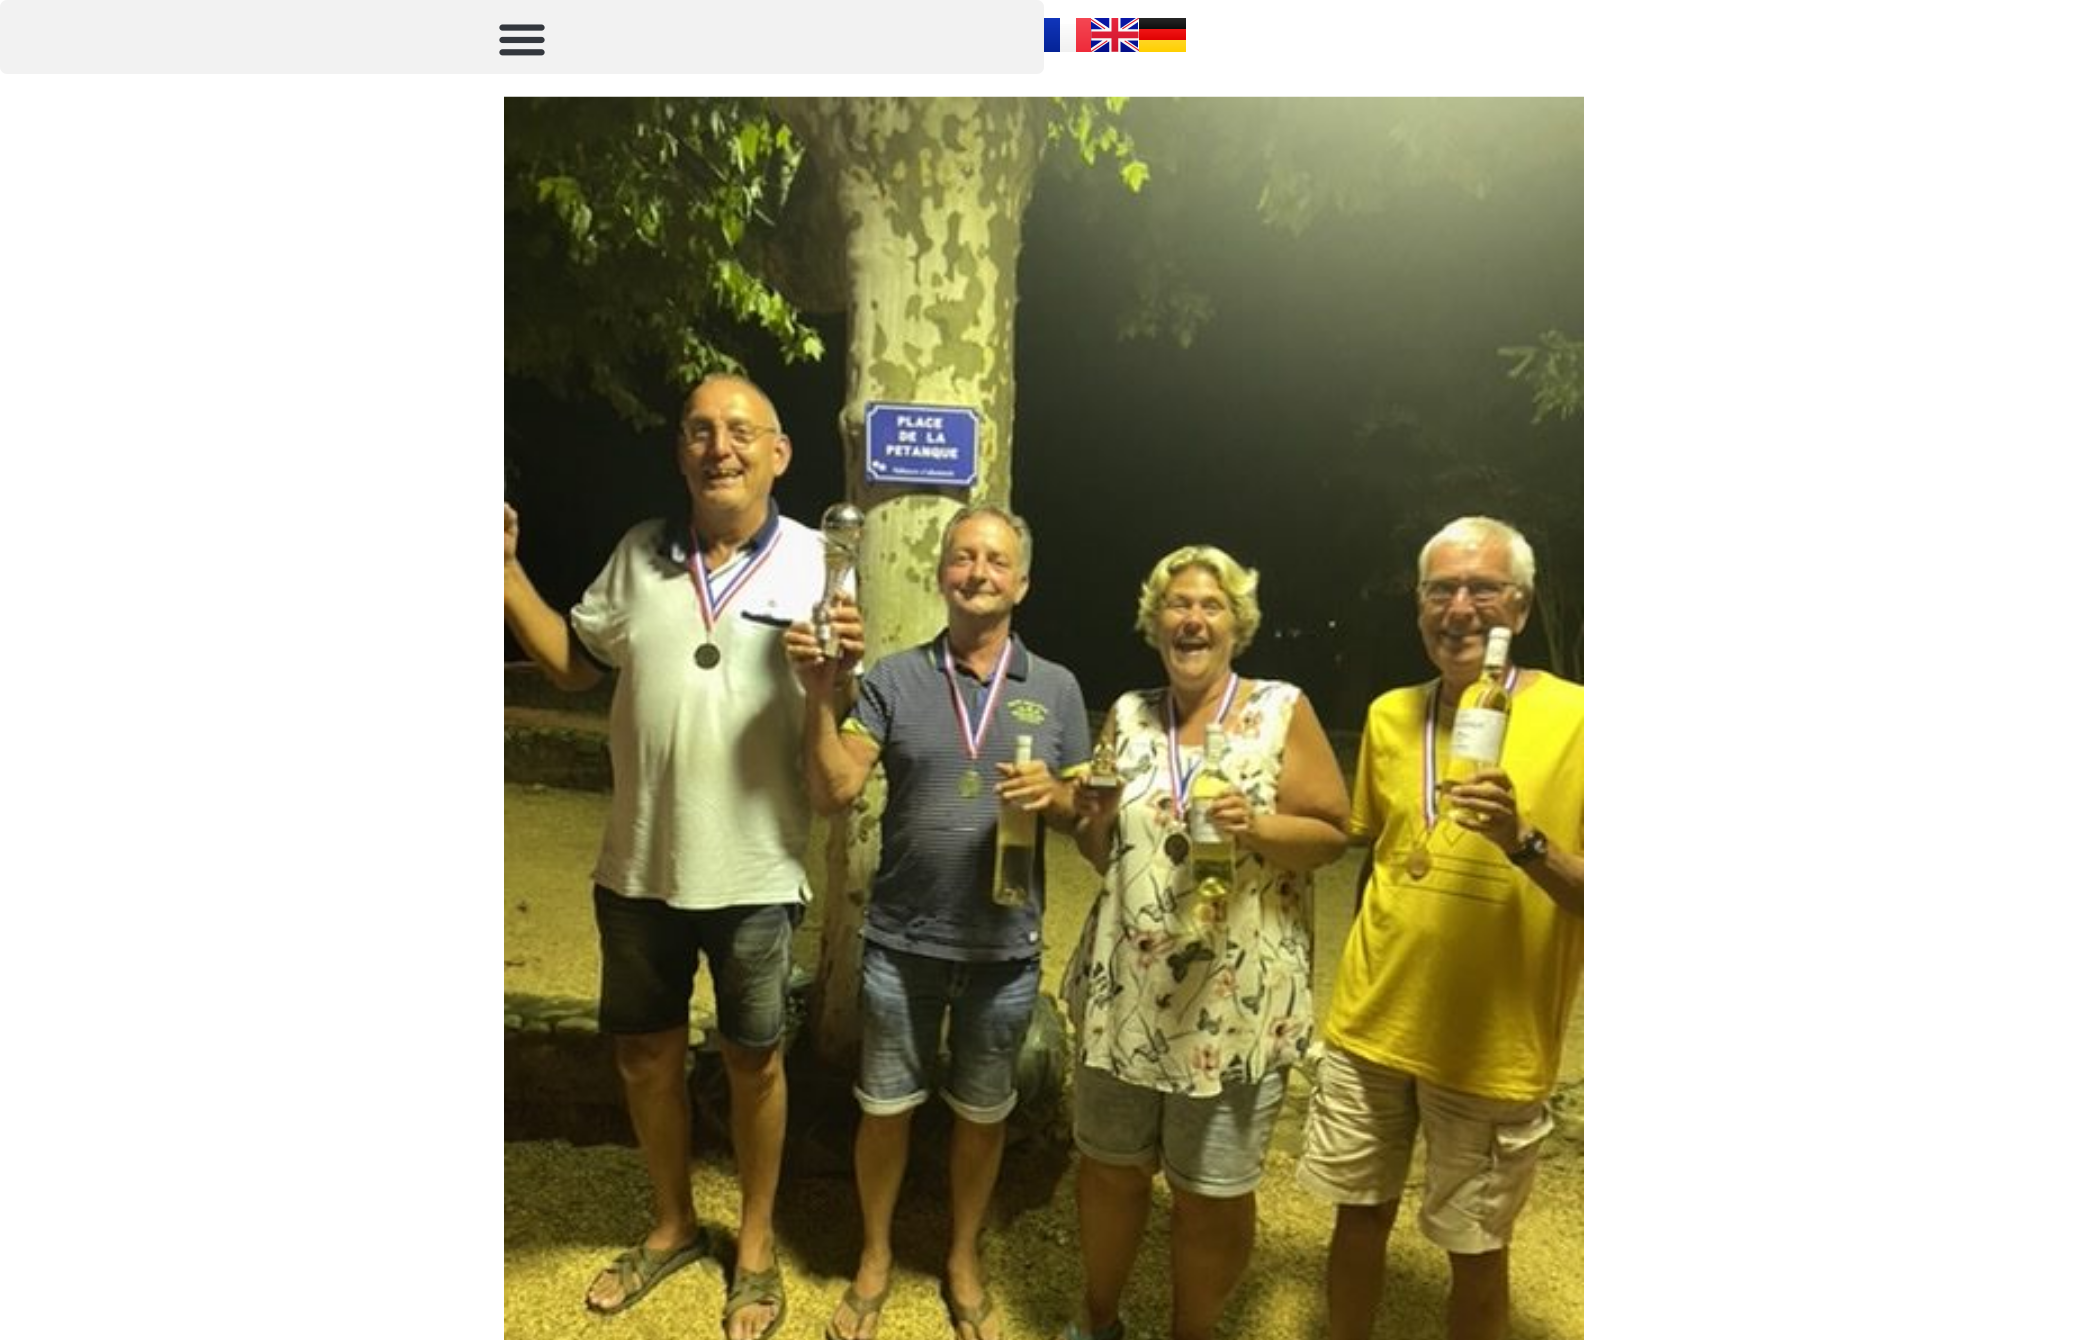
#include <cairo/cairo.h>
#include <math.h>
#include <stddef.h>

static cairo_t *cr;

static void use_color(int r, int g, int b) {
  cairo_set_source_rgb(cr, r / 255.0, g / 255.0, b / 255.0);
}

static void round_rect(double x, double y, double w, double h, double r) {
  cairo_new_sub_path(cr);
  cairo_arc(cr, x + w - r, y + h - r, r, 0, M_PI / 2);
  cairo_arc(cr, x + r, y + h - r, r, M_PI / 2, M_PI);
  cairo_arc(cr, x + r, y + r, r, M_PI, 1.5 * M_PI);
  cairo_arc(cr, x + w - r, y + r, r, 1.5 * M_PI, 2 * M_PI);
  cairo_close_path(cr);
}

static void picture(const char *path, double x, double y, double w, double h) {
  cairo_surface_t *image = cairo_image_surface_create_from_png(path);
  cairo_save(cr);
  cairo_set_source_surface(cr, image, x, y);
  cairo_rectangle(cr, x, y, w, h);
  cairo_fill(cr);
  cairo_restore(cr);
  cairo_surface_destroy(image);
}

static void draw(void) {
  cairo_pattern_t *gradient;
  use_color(255, 255, 255);
  cairo_paint(cr);
  use_color(242, 242, 242);
  round_rect(0, 0, 1044, 74, 7);
  cairo_fill(cr);
  picture("img_01.png", 499, 24, 46, 32);
  gradient = cairo_pattern_create_linear(1052, 18, 1052, 52);
  cairo_pattern_add_color_stop_rgba(gradient, 0, 0.063, 0.208, 0.733, 1);
  cairo_pattern_add_color_stop_rgba(gradient, 1, 0.016, 0.137, 0.588, 1);
  cairo_set_source(cr, gradient);
  cairo_pattern_destroy(gradient);
  cairo_rectangle(cr, 1044, 18, 16, 34);
  cairo_fill(cr);
  gradient = cairo_pattern_create_linear(1068, 18, 1068, 52);
  cairo_pattern_add_color_stop_rgba(gradient, 0, 1, 1, 1, 1);
  cairo_pattern_add_color_stop_rgba(gradient, 1, 0.941, 0.941, 0.941, 1);
  cairo_set_source(cr, gradient);
  cairo_pattern_destroy(gradient);
  cairo_rectangle(cr, 1060, 24, 16, 28);
  cairo_fill(cr);
  gradient = cairo_pattern_create_linear(1079, 18, 1079, 52);
  cairo_pattern_add_color_stop_rgba(gradient, 0, 0.957, 0.275, 0.325, 1);
  cairo_pattern_add_color_stop_rgba(gradient, 1, 0.933, 0.165, 0.224, 1);
  cairo_set_source(cr, gradient);
  cairo_pattern_destroy(gradient);
  cairo_rectangle(cr, 1076, 18, 15, 34);
  cairo_fill(cr);
  picture("img_02.png", 1091, 18, 48, 34);
  gradient = cairo_pattern_create_linear(1162, 18, 1162, 29);
  cairo_pattern_add_color_stop_rgba(gradient, 0, 0.149, 0.149, 0.149, 1);
  cairo_pattern_add_color_stop_rgba(gradient, 1, 0.051, 0.051, 0.051, 1);
  cairo_set_source(cr, gradient);
  cairo_pattern_destroy(gradient);
  cairo_rectangle(cr, 1139, 18, 47, 11);
  cairo_fill(cr);
  gradient = cairo_pattern_create_linear(1162, 29, 1162, 41);
  cairo_pattern_add_color_stop_rgba(gradient, 0, 0.941, 0.082, 0.082, 1);
  cairo_pattern_add_color_stop_rgba(gradient, 1, 0.871, 0, 0, 1);
  cairo_set_source(cr, gradient);
  cairo_pattern_destroy(gradient);
  cairo_rectangle(cr, 1139, 29, 47, 11);
  cairo_fill(cr);
  gradient = cairo_pattern_create_linear(1162, 41, 1162, 52);
  cairo_pattern_add_color_stop_rgba(gradient, 0, 1, 0.835, 0.129, 1);
  cairo_pattern_add_color_stop_rgba(gradient, 1, 1, 0.812, 0, 1);
  cairo_set_source(cr, gradient);
  cairo_pattern_destroy(gradient);
  cairo_rectangle(cr, 1139, 40, 47, 12);
  cairo_fill(cr);
  picture("img_03.png", 504, 96, 1080, 1244);
}

int main(void) {
  cairo_surface_t *surface = cairo_image_surface_create(CAIRO_FORMAT_RGB24, 2084, 1340);
  cr = cairo_create(surface);
  cairo_font_options_t *options = cairo_font_options_create();
  cairo_font_options_set_hint_metrics(options, CAIRO_HINT_METRICS_OFF);
  cairo_font_options_set_hint_style(options, CAIRO_HINT_STYLE_NONE);
  cairo_set_font_options(cr, options);
  cairo_set_miter_limit(cr, 4);
  draw();
  cairo_surface_write_to_png(surface, "out.png");
  cairo_font_options_destroy(options);
  cairo_destroy(cr);
  cairo_surface_destroy(surface);
  return 0;
}
